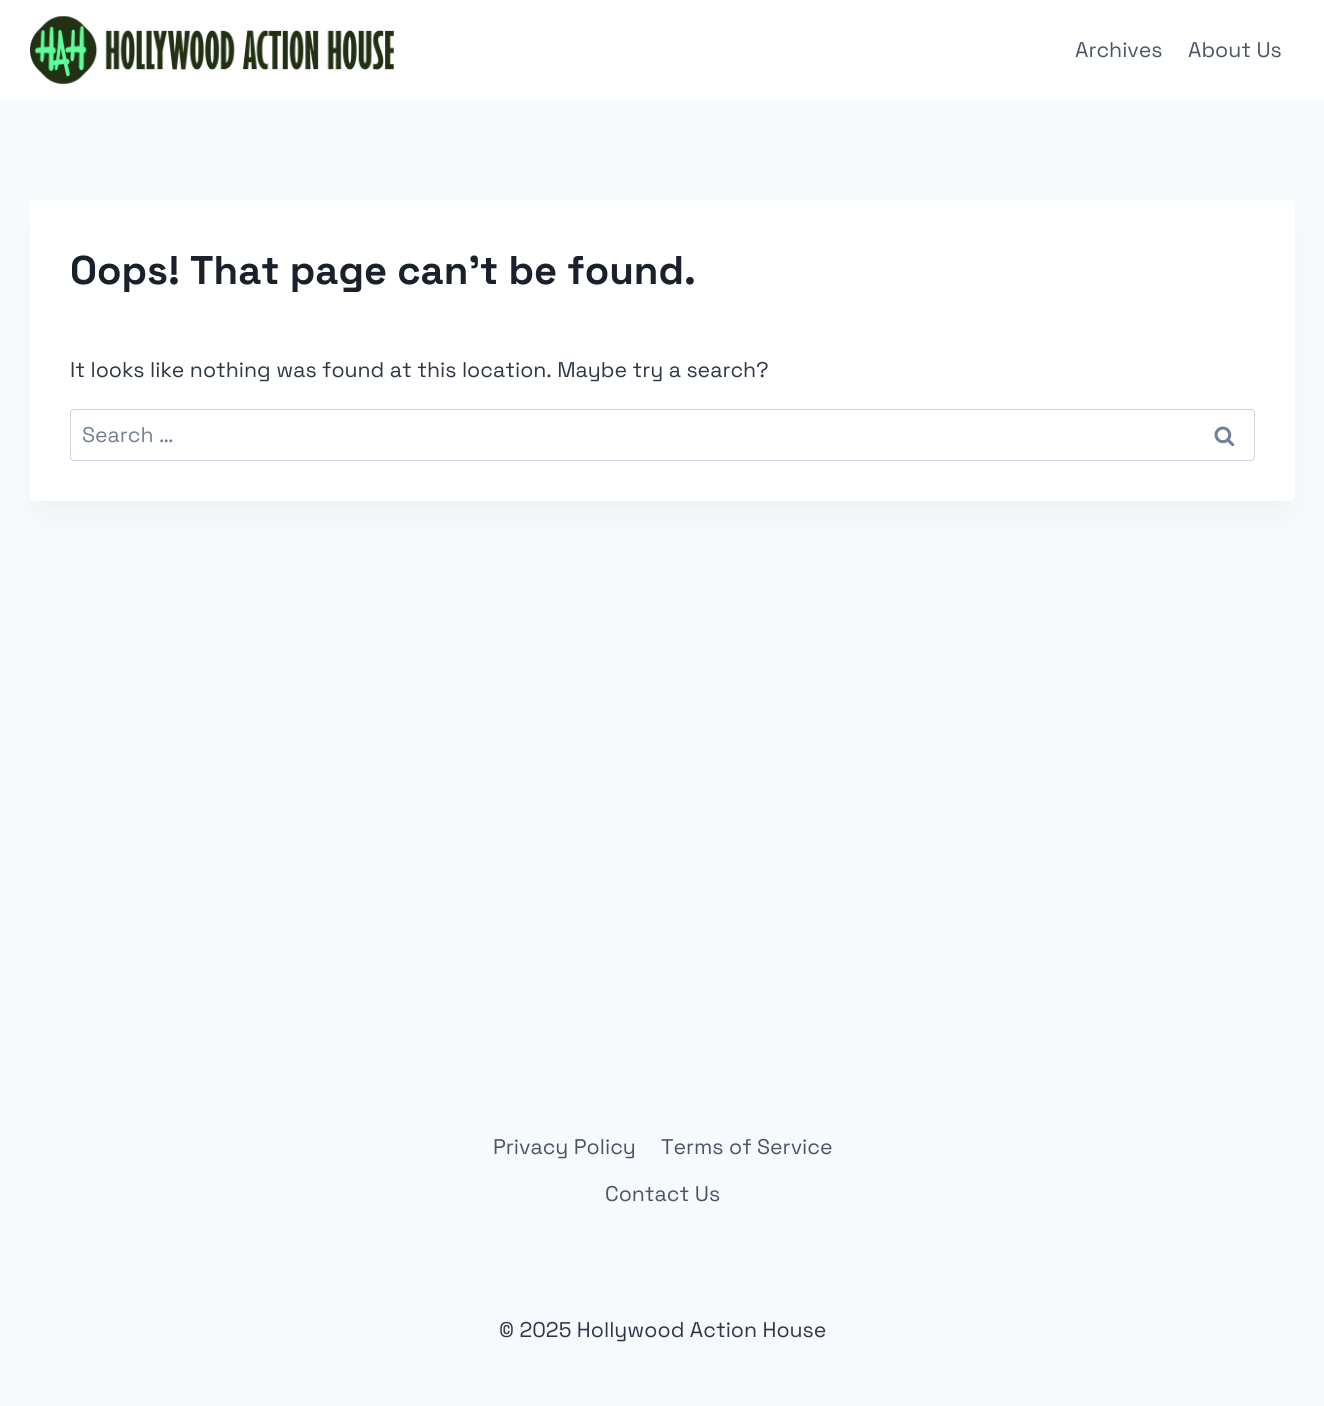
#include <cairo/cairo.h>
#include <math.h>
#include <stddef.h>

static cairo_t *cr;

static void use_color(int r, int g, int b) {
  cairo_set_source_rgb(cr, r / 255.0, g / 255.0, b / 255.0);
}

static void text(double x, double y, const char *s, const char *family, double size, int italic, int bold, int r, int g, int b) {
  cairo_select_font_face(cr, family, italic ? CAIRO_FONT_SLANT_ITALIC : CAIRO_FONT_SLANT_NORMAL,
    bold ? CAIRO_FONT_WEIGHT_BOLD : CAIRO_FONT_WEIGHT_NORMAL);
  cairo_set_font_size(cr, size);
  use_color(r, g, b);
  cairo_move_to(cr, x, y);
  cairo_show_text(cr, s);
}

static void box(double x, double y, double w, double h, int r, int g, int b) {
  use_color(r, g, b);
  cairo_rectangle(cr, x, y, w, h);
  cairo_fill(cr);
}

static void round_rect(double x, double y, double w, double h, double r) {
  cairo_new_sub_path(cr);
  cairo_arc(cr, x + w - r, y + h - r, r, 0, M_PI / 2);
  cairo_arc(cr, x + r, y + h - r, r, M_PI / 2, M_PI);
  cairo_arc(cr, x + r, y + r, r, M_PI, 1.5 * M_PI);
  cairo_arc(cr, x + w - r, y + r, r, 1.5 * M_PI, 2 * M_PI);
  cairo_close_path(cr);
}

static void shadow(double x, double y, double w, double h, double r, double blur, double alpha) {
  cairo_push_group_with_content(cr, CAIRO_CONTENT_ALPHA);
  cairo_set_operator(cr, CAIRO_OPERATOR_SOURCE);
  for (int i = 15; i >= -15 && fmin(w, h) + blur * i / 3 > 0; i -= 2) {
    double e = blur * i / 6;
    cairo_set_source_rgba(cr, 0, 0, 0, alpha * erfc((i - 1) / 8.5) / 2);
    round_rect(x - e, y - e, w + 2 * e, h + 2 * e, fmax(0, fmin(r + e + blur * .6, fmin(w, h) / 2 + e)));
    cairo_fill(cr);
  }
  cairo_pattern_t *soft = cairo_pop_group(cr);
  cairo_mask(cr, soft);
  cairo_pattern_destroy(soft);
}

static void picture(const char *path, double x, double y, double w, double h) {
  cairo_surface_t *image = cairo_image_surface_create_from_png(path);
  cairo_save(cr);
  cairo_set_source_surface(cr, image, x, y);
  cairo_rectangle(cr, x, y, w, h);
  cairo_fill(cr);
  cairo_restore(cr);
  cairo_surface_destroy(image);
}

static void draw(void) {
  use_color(247, 250, 252);
  cairo_paint(cr);
  box(0, 0, 1324, 100, 255, 255, 255);
  picture("img_01.png", 30, 16, 364, 68);
  use_color(0, 0, 0);
  shadow(43, 231, 1240, 277, 0, 15.5, 0.05);
  use_color(255, 255, 255);
  round_rect(30, 200, 1265, 301, 5);
  cairo_fill(cr);
  round_rect(70.5, 409.5, 1184, 51, 3.5);
  use_color(203, 213, 224);
  cairo_set_line_width(cr, 1);
  cairo_stroke(cr);
  picture("img_02.png", 1214, 426, 21, 20);
  text(1075, 57, "Archives", "Space Grotesk", 21.25, 0, 0, 74, 85, 104);
  text(1188, 57, "About Us", "Space Grotesk", 21.25, 0, 0, 74, 85, 104);
  text(70, 284, "Oops! That page can’t be found.", "Space Grotesk", 40, 0, 1, 26, 32, 44);
  text(70, 377, "It looks like nothing was found at this location. Maybe try a search?", "Space Grotesk", 21.25, 0, 0, 45, 55, 72);
  text(82, 442, "Search …", "Space Grotesk", 21.25, 0, 0, 113, 128, 150);
  text(493, 1154, "Privacy Policy", "Space Grotesk", 21.25, 0, 0, 74, 85, 104);
  text(661, 1154, "Terms of Service", "Space Grotesk", 21.25, 0, 0, 74, 85, 104);
  text(605, 1201, "Contact Us", "Space Grotesk", 21.25, 0, 0, 74, 85, 104);
  text(499, 1337, "© 2025 Hollywood Action House", "Space Grotesk", 21.25, 0, 0, 45, 55, 72);
}

int main(void) {
  cairo_surface_t *surface = cairo_image_surface_create(CAIRO_FORMAT_RGB24, 1324, 1406);
  cr = cairo_create(surface);
  cairo_font_options_t *options = cairo_font_options_create();
  cairo_font_options_set_hint_metrics(options, CAIRO_HINT_METRICS_OFF);
  cairo_font_options_set_hint_style(options, CAIRO_HINT_STYLE_NONE);
  cairo_set_font_options(cr, options);
  cairo_set_miter_limit(cr, 4);
  draw();
  cairo_surface_write_to_png(surface, "out.png");
  cairo_font_options_destroy(options);
  cairo_destroy(cr);
  cairo_surface_destroy(surface);
  return 0;
}
